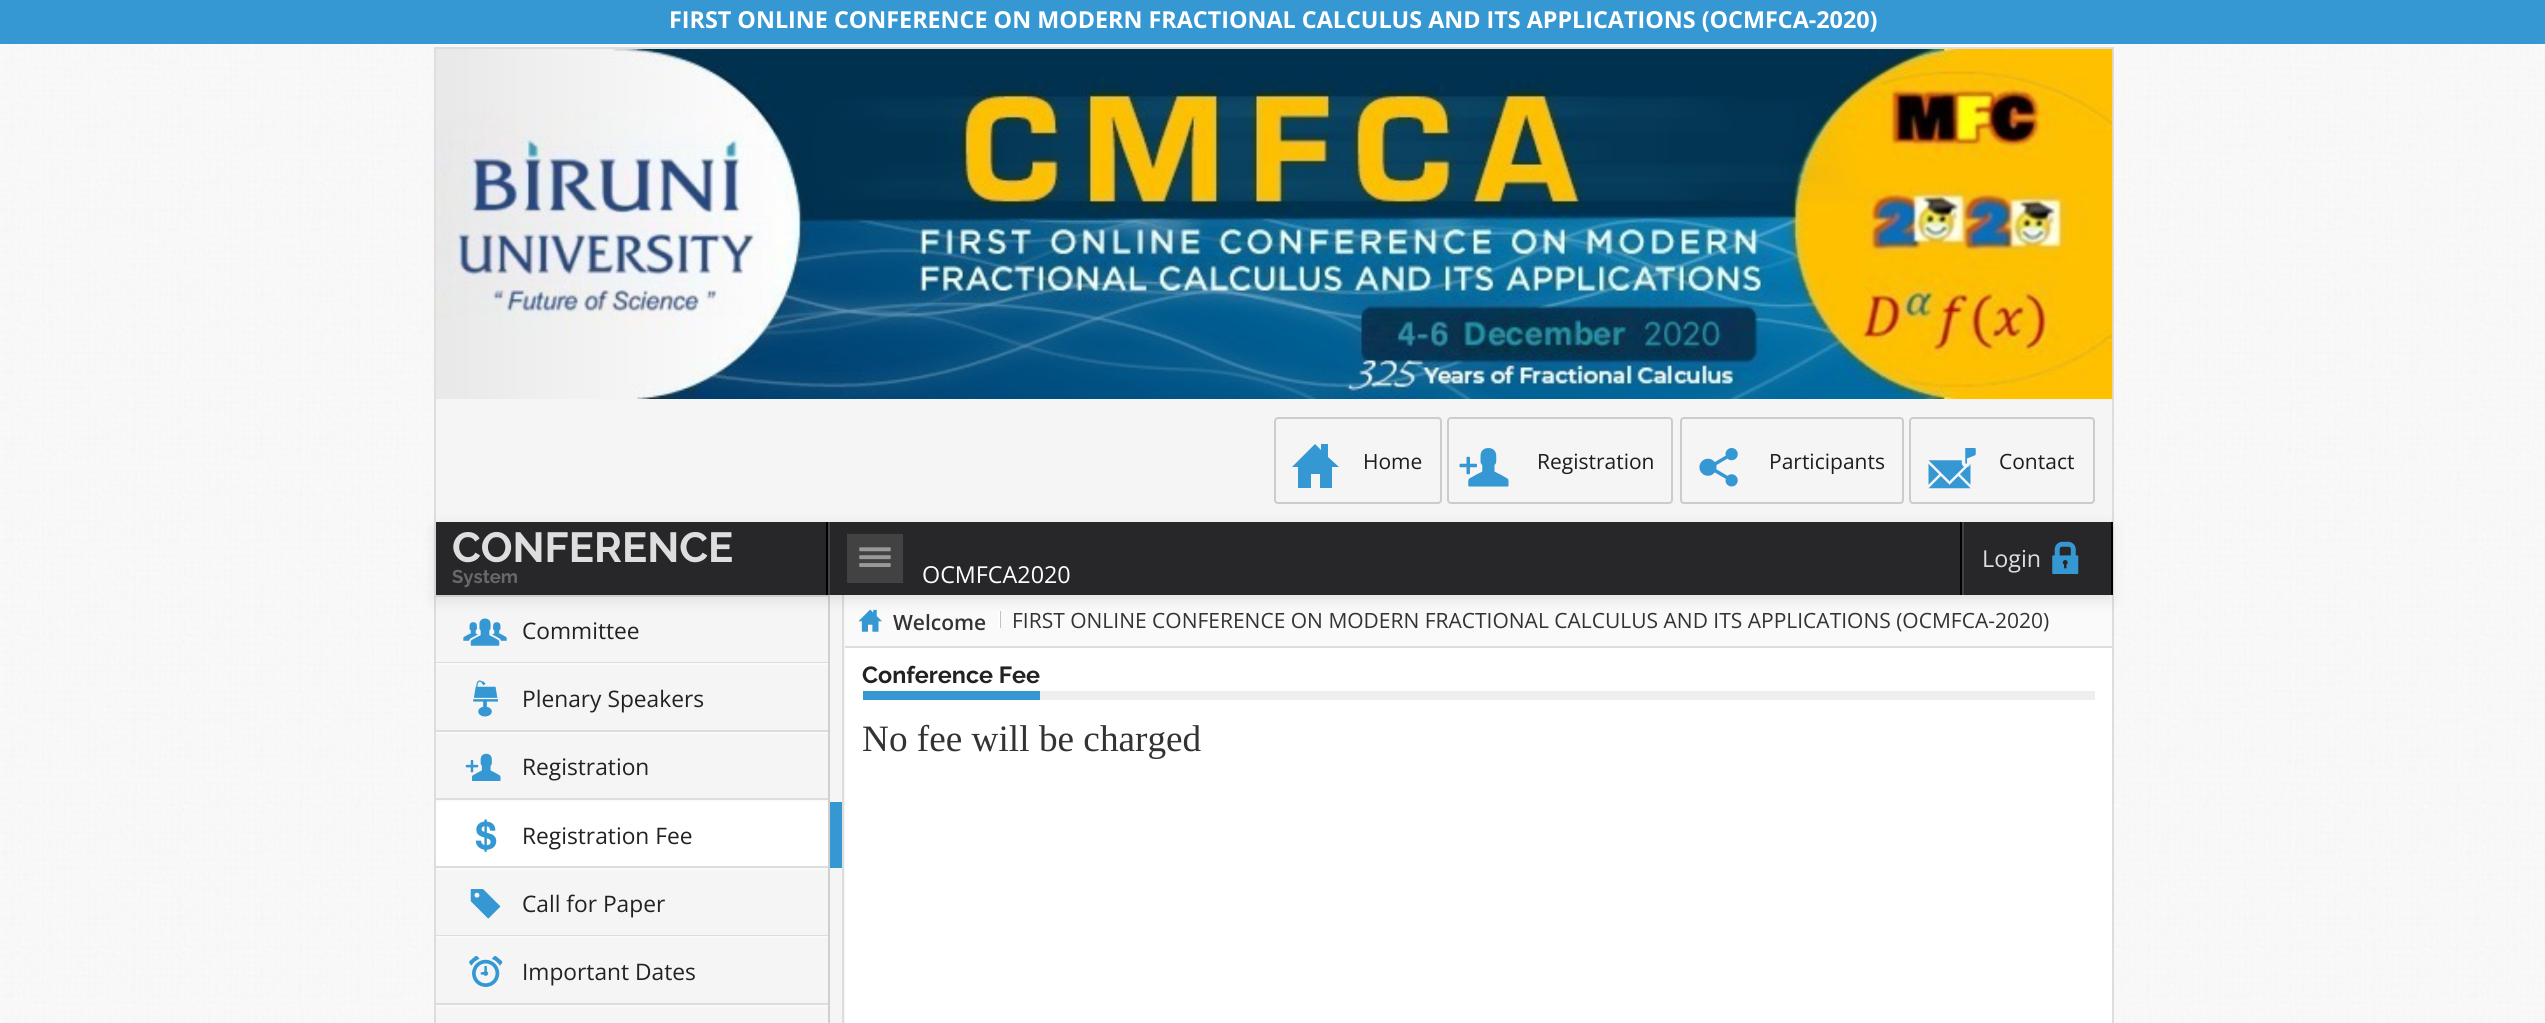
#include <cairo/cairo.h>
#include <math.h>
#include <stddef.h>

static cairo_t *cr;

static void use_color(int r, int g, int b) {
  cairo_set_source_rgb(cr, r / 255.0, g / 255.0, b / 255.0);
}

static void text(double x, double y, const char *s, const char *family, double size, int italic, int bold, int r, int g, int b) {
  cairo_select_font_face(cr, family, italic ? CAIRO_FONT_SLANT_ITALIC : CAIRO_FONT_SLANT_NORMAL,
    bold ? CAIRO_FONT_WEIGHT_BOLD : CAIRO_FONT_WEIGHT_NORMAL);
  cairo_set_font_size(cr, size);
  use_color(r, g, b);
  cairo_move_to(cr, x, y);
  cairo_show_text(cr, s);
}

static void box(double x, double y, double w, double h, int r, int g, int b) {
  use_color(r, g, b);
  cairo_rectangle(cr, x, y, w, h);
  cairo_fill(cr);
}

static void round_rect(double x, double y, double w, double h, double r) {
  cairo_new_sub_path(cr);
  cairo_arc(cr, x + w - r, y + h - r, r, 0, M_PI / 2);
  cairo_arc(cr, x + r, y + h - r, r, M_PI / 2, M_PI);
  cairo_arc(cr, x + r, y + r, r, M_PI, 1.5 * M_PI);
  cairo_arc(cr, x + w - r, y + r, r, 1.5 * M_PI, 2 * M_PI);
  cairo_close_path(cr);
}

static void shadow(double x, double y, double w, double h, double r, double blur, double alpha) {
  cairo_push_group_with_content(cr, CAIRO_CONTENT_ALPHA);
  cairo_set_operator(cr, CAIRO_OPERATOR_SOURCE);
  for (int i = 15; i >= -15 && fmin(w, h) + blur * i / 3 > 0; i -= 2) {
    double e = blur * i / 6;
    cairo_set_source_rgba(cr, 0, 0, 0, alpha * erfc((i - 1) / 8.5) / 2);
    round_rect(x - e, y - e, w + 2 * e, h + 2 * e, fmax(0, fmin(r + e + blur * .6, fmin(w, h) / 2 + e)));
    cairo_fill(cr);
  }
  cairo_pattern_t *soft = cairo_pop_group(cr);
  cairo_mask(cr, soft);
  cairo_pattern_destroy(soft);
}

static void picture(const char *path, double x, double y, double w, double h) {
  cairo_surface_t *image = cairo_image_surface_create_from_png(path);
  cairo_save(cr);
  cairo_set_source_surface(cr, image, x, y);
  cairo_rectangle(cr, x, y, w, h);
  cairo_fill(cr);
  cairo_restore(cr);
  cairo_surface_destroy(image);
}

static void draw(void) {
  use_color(255, 255, 255);
  cairo_paint(cr);
  picture("img_01.png", 0, 44, 2545, 979);
  box(0, 0, 2545, 44, 54, 152, 211);
  box(436, 399, 1676, 624, 245, 245, 245);
  cairo_rectangle(cr, 435, 48, 1678, 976);
  use_color(221, 221, 221);
  cairo_stroke(cr);
  picture("img_02.png", 435, 49, 1678, 350);
  round_rect(1275, 418, 166, 85, 3);
  use_color(204, 204, 204);
  cairo_stroke(cr);
  use_color(54, 152, 211);
  cairo_new_path(cr);
  cairo_move_to(cr, 1292, 467);
  cairo_line_to(cr, 1315, 444);
  cairo_line_to(cr, 1321, 450);
  cairo_line_to(cr, 1321, 444);
  cairo_line_to(cr, 1328, 444);
  cairo_line_to(cr, 1328, 457);
  cairo_line_to(cr, 1339, 467);
  cairo_line_to(cr, 1332, 467);
  cairo_line_to(cr, 1332, 488);
  cairo_line_to(cr, 1320, 488);
  cairo_line_to(cr, 1320, 474);
  cairo_line_to(cr, 1311, 474);
  cairo_line_to(cr, 1311, 488);
  cairo_line_to(cr, 1298, 488);
  cairo_line_to(cr, 1298, 467);
  cairo_close_path(cr);
  cairo_fill(cr);
  round_rect(1448, 418, 224, 85, 3);
  use_color(204, 204, 204);
  cairo_stroke(cr);
  picture("img_03.png", 1459, 448, 50, 39);
  round_rect(1681, 418, 222, 85, 3);
  cairo_stroke(cr);
  picture("img_04.png", 1699, 448, 39, 39);
  round_rect(1910, 418, 184, 85, 3);
  cairo_stroke(cr);
  picture("img_05.png", 1928, 448, 48, 41);
  box(842, 595, 2, 428, 221, 221, 221);
  box(828, 595, 2, 428, 208, 208, 208);
  box(436, 595, 392, 2, 221, 221, 221);
  picture("img_08.png", 463, 618, 44, 28);
  box(845, 595, 1267, 51, 250, 250, 250);
  picture("img_14.png", 858, 609, 24, 23);
  box(1000, 611, 1, 17, 191, 194, 197);
  box(998, 611, 2, 17, 255, 255, 255);
  use_color(0, 0, 0);
  shadow(436, 527, 1676, 73, 0, 7, 0.1);
  box(436, 522, 1675, 73, 39, 39, 41);
  box(828, 522, 2, 73, 66, 66, 67);
  box(826, 522, 2, 73, 0, 0, 0);
  box(847, 534, 56, 49, 66, 66, 67);
  picture("img_06.png", 859, 547, 32, 20);
  box(1960, 522, 2, 73, 0, 0, 0);
  box(2111, 522, 2, 73, 0, 0, 0);
  box(1962, 522, 2, 73, 66, 66, 67);
  picture("img_07.png", 2052, 541, 27, 33);
  box(436, 663, 392, 2, 250, 250, 250);
  box(436, 662, 392, 1, 221, 221, 221);
  box(436, 732, 392, 2, 250, 250, 250);
  picture("img_09.png", 473, 680, 25, 37);
  box(436, 730, 392, 2, 221, 221, 221);
  box(436, 800, 392, 2, 250, 250, 250);
  picture("img_10.png", 465, 753, 36, 28);
  box(436, 798, 392, 2, 221, 221, 221);
  box(436, 868, 392, 2, 250, 250, 250);
  box(436, 802, 392, 64, 255, 255, 255);
  picture("img_11.png", 475, 819, 22, 33);
  box(436, 866, 392, 2, 221, 221, 221);
  box(830, 802, 12, 66, 54, 152, 211);
  box(436, 936, 392, 2, 250, 250, 250);
  picture("img_12.png", 470, 889, 31, 30);
  box(436, 935, 392, 1, 221, 221, 221);
  box(436, 1005, 392, 2, 250, 250, 250);
  picture("img_13.png", 469, 956, 34, 31);
  box(436, 1003, 392, 2, 221, 221, 221);
  box(845, 648, 1267, 375, 255, 255, 255);
  box(845, 646, 1267, 2, 221, 221, 221);
  box(1040, 691, 1055, 9, 238, 238, 238);
  box(863, 691, 177, 9, 54, 152, 211);
  text(669, 28, "FIRST ONLINE CONFERENCE ON MODERN FRACTIONAL CALCULUS AND ITS APPLICATIONS (OCMFCA-2020)", "Open Sans", 23.33, 0, 1, 255, 255, 255);
  text(1363, 469, "Home", "Open Sans", 21, 0, 0, 29, 29, 27);
  text(1537, 469, "Registration", "Open Sans", 21, 0, 0, 29, 29, 27);
  text(1769, 469, "Participants", "Open Sans", 21, 0, 0, 29, 29, 27);
  text(1999, 469, "Contact", "Open Sans", 21, 0, 0, 29, 29, 27);
  text(452, 562, "CONFERENCE", "Raleway", 42, 0, 1, 222, 222, 222);
  text(452, 583, "System", "Raleway", 18.5, 0, 1, 104, 104, 105);
  text(1982, 567, "Login", "Open Sans", 23.33, 0, 0, 222, 222, 222);
  text(922, 583, "OCMFCA2020", "Open Sans", 23.33, 0, 0, 255, 255, 255);
  text(522, 639, "Committee", "Open Sans", 22.75, 0, 0, 34, 34, 34);
  text(522, 707, "Plenary Speakers", "Open Sans", 22.75, 0, 0, 34, 34, 34);
  text(522, 775, "Registration", "Open Sans", 22.75, 0, 0, 34, 34, 34);
  text(522, 844, "Registration Fee", "Open Sans", 22.75, 0, 0, 34, 34, 34);
  text(522, 912, "Call for Paper", "Open Sans", 22.75, 0, 0, 34, 34, 34);
  text(522, 980, "Important Dates", "Open Sans", 22.75, 0, 0, 34, 34, 34);
  text(893, 630, "Welcome", "Open Sans SemiBold", 21, 0, 0, 51, 51, 51);
  text(1012, 628, "FIRST ONLINE CONFERENCE ON MODERN FRACTIONAL CALCULUS AND ITS APPLICATIONS (OCMFCA-2020)", "Open Sans", 21, 0, 0, 51, 51, 51);
  text(862, 683, "Conference Fee", "Raleway", 23.33, 0, 1, 34, 34, 34);
  text(862, 751, "No fee will be charged", "Liberation Serif", 37.25, 0, 0, 51, 51, 51);
}

int main(void) {
  cairo_surface_t *surface = cairo_image_surface_create(CAIRO_FORMAT_RGB24, 2545, 1023);
  cr = cairo_create(surface);
  cairo_font_options_t *options = cairo_font_options_create();
  cairo_font_options_set_hint_metrics(options, CAIRO_HINT_METRICS_OFF);
  cairo_font_options_set_hint_style(options, CAIRO_HINT_STYLE_NONE);
  cairo_set_font_options(cr, options);
  cairo_set_miter_limit(cr, 4);
  draw();
  cairo_surface_write_to_png(surface, "out.png");
  cairo_font_options_destroy(options);
  cairo_destroy(cr);
  cairo_surface_destroy(surface);
  return 0;
}
